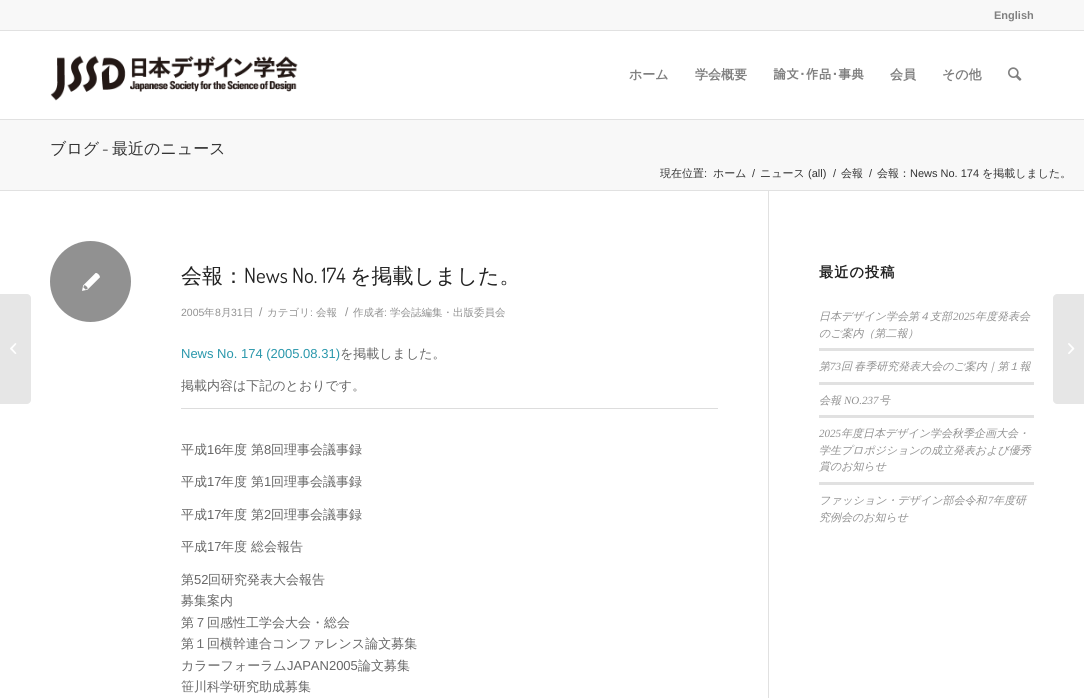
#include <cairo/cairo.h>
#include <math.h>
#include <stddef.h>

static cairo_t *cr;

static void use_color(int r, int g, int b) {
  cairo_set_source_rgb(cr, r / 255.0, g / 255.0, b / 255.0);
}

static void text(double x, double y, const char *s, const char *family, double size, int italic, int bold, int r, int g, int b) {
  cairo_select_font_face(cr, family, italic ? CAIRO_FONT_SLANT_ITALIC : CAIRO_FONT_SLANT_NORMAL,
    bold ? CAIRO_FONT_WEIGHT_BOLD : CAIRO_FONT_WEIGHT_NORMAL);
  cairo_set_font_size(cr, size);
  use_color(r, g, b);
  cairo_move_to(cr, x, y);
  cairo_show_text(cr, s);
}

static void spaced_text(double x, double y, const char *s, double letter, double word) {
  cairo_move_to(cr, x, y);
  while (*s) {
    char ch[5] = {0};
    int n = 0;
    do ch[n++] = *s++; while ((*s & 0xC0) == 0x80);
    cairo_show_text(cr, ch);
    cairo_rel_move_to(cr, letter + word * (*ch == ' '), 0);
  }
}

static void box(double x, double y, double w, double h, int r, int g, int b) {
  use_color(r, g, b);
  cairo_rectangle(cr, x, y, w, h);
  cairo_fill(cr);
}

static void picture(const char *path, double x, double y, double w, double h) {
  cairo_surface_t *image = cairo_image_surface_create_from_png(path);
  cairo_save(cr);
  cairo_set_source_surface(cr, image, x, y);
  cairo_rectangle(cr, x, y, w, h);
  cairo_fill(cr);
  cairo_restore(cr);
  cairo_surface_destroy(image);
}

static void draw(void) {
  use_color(255, 255, 255);
  cairo_paint(cr);
  box(0, 0, 1084, 30, 248, 248, 248);
  box(0, 30, 1084, 1, 225, 225, 225);
  box(0, 119, 1084, 1, 225, 225, 225);
  picture("img_01.png", 50, 55, 248, 46);
  picture("img_02.png", 1008, 67, 14, 14);
  use_color(230, 230, 230);
  cairo_new_path(cr);
  cairo_move_to(cr, 0, 294);
  cairo_line_to(cr, 27, 294);
  cairo_curve_to(cr, 29, 294, 31, 296, 31, 298);
  cairo_line_to(cr, 31, 400);
  cairo_curve_to(cr, 31, 402, 29, 404, 27, 404);
  cairo_line_to(cr, 0, 404);
  cairo_close_path(cr);
  cairo_fill(cr);
  picture("img_03.png", 10, 343, 7, 11);
  box(0, 120, 1084, 70, 248, 248, 248);
  box(0, 190, 1084, 1, 225, 225, 225);
  box(768, 191, 1, 507, 225, 225, 225);
  use_color(145, 145, 145);
  cairo_arc(cr, 90.5, 281.5, 40.5, 0, 2 * M_PI);
  cairo_fill(cr);
  picture("img_04.png", 82, 273, 18, 18);
  box(181, 408, 537, 1, 221, 221, 221);
  box(819, 348, 215, 3, 225, 225, 225);
  box(819, 382, 215, 3, 225, 225, 225);
  box(819, 415, 215, 3, 225, 225, 225);
  box(819, 482, 215, 3, 225, 225, 225);
  use_color(230, 230, 230);
  cairo_new_path(cr);
  cairo_move_to(cr, 1057, 294);
  cairo_line_to(cr, 1084, 294);
  cairo_line_to(cr, 1084, 404);
  cairo_line_to(cr, 1057, 404);
  cairo_curve_to(cr, 1055, 404, 1053, 402, 1053, 400);
  cairo_line_to(cr, 1053, 298);
  cairo_curve_to(cr, 1053, 296, 1055, 294, 1057, 294);
  cairo_close_path(cr);
  cairo_fill(cr);
  picture("img_05.png", 1068, 343, 7, 11);
  text(994, 19, "English", "Liberation Sans", 11, 0, 1, 128, 128, 128);
  text(629, 79, "ホーム", "WenQuanYi Zen Hei", 13, 0, 1, 128, 128, 128);
  text(695, 79, "学会概要", "WenQuanYi Zen Hei", 13, 0, 1, 128, 128, 128);
  text(773, 79, "論文･作品･事典", "IPAPGothic", 13, 0, 1, 128, 128, 128);
  text(890, 79, "会員", "WenQuanYi Zen Hei", 13, 0, 1, 128, 128, 128);
  text(942, 79, "その他", "WenQuanYi Zen Hei", 13, 0, 1, 128, 128, 128);
  text(50, 154, "ブログ", "WenQuanYi Zen Hei Medium", 16, 0, 0, 51, 51, 51);
  text(102, 154, "-", "Dosis", 16, 0, 0, 51, 51, 51);
  text(112, 154, "最近のニュース", "WenQuanYi Zen Hei Medium", 16, 0, 0, 51, 51, 51);
  text(660, 177, "現在位置", "WenQuanYi Zen Hei Medium", 11, 0, 0, 51, 51, 51);
  text(704, 177, ":", "Liberation Sans", 11, 0, 0, 51, 51, 51);
  text(713, 177, "ホーム", "WenQuanYi Zen Hei Medium", 11, 0, 0, 51, 51, 51);
  text(752, 177, "/", "Liberation Sans", 11, 0, 0, 51, 51, 51);
  text(760, 177, "ニュース", "WenQuanYi Zen Hei Medium", 11, 0, 0, 51, 51, 51);
  text(808, 177, "(all)", "Liberation Sans", 11, 0, 0, 51, 51, 51);
  text(833, 177, "/", "Liberation Sans", 11, 0, 0, 51, 51, 51);
  text(841, 177, "会報", "WenQuanYi Zen Hei Medium", 11, 0, 0, 51, 51, 51);
  text(869, 177, "/", "Liberation Sans", 11, 0, 0, 51, 51, 51);
  text(877, 177, "会報：", "WenQuanYi Zen Hei Medium", 11, 0, 0, 51, 51, 51);
  text(910, 177, "News No. 174", "Liberation Sans", 11, 0, 0, 51, 51, 51);
  text(982, 177, "を掲載しました。", "WenQuanYi Zen Hei Medium", 11, 0, 0, 51, 51, 51);
  text(181, 283, "会報：", "WenQuanYi Zen Hei Medium", 21, 0, 0, 34, 34, 34);
  text(244, 283, "News No. 174", "Dosis", 21, 0, 0, 34, 34, 34);
  text(350, 283, "を掲載しました。", "WenQuanYi Zen Hei Medium", 21, 0, 0, 34, 34, 34);
  text(181, 316, "2005", "Liberation Sans", 10.5, 0, 0, 145, 145, 145);
  text(204, 316, "年", "WenQuanYi Zen Hei Medium", 10.5, 0, 0, 145, 145, 145);
  text(215, 316, "8", "Liberation Sans", 10.5, 0, 0, 145, 145, 145);
  text(221, 316, "月", "WenQuanYi Zen Hei Medium", 10.5, 0, 0, 145, 145, 145);
  text(231, 316, "31", "Liberation Sans", 10.5, 0, 0, 145, 145, 145);
  text(243, 316, "日", "WenQuanYi Zen Hei Medium", 10.5, 0, 0, 145, 145, 145);
  text(259, 316, "/", "Liberation Sans", 12, 0, 0, 145, 145, 145);
  text(267, 316, "カテゴリ", "WenQuanYi Zen Hei Medium", 10.5, 0, 0, 145, 145, 145);
  text(310, 316, ":", "Liberation Sans", 10.5, 0, 0, 145, 145, 145);
  text(316, 316, "会報", "WenQuanYi Zen Hei Medium", 10.5, 0, 0, 145, 145, 145);
  text(345, 316, "/", "Liberation Sans", 12, 0, 0, 145, 145, 145);
  text(353, 316, "作成者", "WenQuanYi Zen Hei Medium", 10.5, 0, 0, 145, 145, 145);
  text(384, 316, ":", "Liberation Sans", 10.5, 0, 0, 145, 145, 145);
  text(390, 316, "学会誌編集・出版委員会", "WenQuanYi Zen Hei Medium", 10.5, 0, 0, 145, 145, 145);
  text(181, 358, "News No. 174 (2005.08.31)", "Liberation Sans", 13, 0, 0, 41, 151, 171);
  text(340, 358, "を掲載しました。", "WenQuanYi Zen Hei Medium", 13, 0, 0, 102, 102, 102);
  text(181, 390, "掲載内容は下記のとおりです。", "WenQuanYi Zen Hei Medium", 13, 0, 0, 102, 102, 102);
  text(181, 454, "平成", "WenQuanYi Zen Hei Medium", 13, 0, 0, 102, 102, 102);
  text(207, 454, "16", "Liberation Sans", 13, 0, 0, 102, 102, 102);
  text(221, 454, "年度 第", "WenQuanYi Zen Hei Medium", 13, 0, 0, 102, 102, 102);
  text(264, 454, "8", "Liberation Sans", 13, 0, 0, 102, 102, 102);
  text(271, 454, "回理事会議事録", "WenQuanYi Zen Hei Medium", 13, 0, 0, 102, 102, 102);
  text(181, 486, "平成", "WenQuanYi Zen Hei Medium", 13, 0, 0, 102, 102, 102);
  text(207, 486, "17", "Liberation Sans", 13, 0, 0, 102, 102, 102);
  text(221, 486, "年度 第", "WenQuanYi Zen Hei Medium", 13, 0, 0, 102, 102, 102);
  text(264, 486, "1", "Liberation Sans", 13, 0, 0, 102, 102, 102);
  text(271, 486, "回理事会議事録", "WenQuanYi Zen Hei Medium", 13, 0, 0, 102, 102, 102);
  text(181, 519, "平成", "WenQuanYi Zen Hei Medium", 13, 0, 0, 102, 102, 102);
  text(207, 519, "17", "Liberation Sans", 13, 0, 0, 102, 102, 102);
  text(221, 519, "年度 第", "WenQuanYi Zen Hei Medium", 13, 0, 0, 102, 102, 102);
  text(264, 519, "2", "Liberation Sans", 13, 0, 0, 102, 102, 102);
  text(271, 519, "回理事会議事録", "WenQuanYi Zen Hei Medium", 13, 0, 0, 102, 102, 102);
  text(181, 551, "平成", "WenQuanYi Zen Hei Medium", 13, 0, 0, 102, 102, 102);
  text(207, 551, "17", "Liberation Sans", 13, 0, 0, 102, 102, 102);
  text(221, 551, "年度 総会報告", "WenQuanYi Zen Hei Medium", 13, 0, 0, 102, 102, 102);
  text(181, 584, "第", "WenQuanYi Zen Hei Medium", 13, 0, 0, 102, 102, 102);
  text(194, 584, "52", "Liberation Sans", 13, 0, 0, 102, 102, 102);
  text(208, 584, "回研究発表大会報告", "WenQuanYi Zen Hei Medium", 13, 0, 0, 102, 102, 102);
  text(181, 605, "募集案内", "WenQuanYi Zen Hei Medium", 13, 0, 0, 102, 102, 102);
  text(181, 627, "第７回感性工学会大会・総会", "WenQuanYi Zen Hei Medium", 13, 0, 0, 102, 102, 102);
  text(181, 648, "第１回横幹連合コンファレンス論文募集", "WenQuanYi Zen Hei Medium", 13, 0, 0, 102, 102, 102);
  text(181, 670, "カラーフォーラム", "WenQuanYi Zen Hei Medium", 13, 0, 0, 102, 102, 102);
  text(287, 670, "JAPAN2005", "Liberation Sans", 13, 0, 0, 102, 102, 102);
  text(358, 670, "論文募集", "WenQuanYi Zen Hei Medium", 13, 0, 0, 102, 102, 102);
  text(181, 691, "笹川科学研究助成募集", "WenQuanYi Zen Hei Medium", 13, 0, 0, 102, 102, 102);
  cairo_select_font_face(cr, "WenQuanYi Zen Hei", CAIRO_FONT_SLANT_NORMAL, CAIRO_FONT_WEIGHT_BOLD);
  cairo_set_font_size(cr, 14.25);
  use_color(34, 34, 34);
  spaced_text(819, 277, "最近の投稿", 1, 0);
  text(819, 320, "日本デザイン学会第４支部", "WenQuanYi Zen Hei Medium", 11, 1, 0, 145, 145, 145);
  text(953, 320, "2025", "Liberation Serif", 11, 1, 0, 145, 145, 145);
  text(975, 320, "年度発表会", "WenQuanYi Zen Hei Medium", 11, 1, 0, 145, 145, 145);
  text(819, 337, "のご案内（第二報）", "WenQuanYi Zen Hei Medium", 11, 1, 0, 145, 145, 145);
  text(819, 370, "第", "WenQuanYi Zen Hei Medium", 11, 1, 0, 145, 145, 145);
  text(830, 370, "73", "Liberation Serif", 11, 1, 0, 145, 145, 145);
  cairo_select_font_face(cr, "WenQuanYi Zen Hei Medium", CAIRO_FONT_SLANT_ITALIC, CAIRO_FONT_WEIGHT_NORMAL);
  spaced_text(841, 370, "回 春季研究発表大会のご案内｜第１報", 0, -1);
  text(819, 404, "会報", "WenQuanYi Zen Hei Medium", 11, 1, 0, 145, 145, 145);
  text(844, 404, "NO.237", "Liberation Serif", 11, 1, 0, 145, 145, 145);
  text(879, 404, "号", "WenQuanYi Zen Hei Medium", 11, 1, 0, 145, 145, 145);
  text(819, 437, "2025", "Liberation Serif", 11, 1, 0, 145, 145, 145);
  text(841, 437, "年度日本デザイン学会秋季企画大会・", "WenQuanYi Zen Hei Medium", 11, 1, 0, 145, 145, 145);
  text(819, 454, "学生プロポジションの成立発表および優秀", "WenQuanYi Zen Hei Medium", 11, 1, 0, 145, 145, 145);
  text(819, 470, "賞のお知らせ", "WenQuanYi Zen Hei Medium", 11, 1, 0, 145, 145, 145);
  text(819, 504, "ファッション・デザイン部会令和", "WenQuanYi Zen Hei Medium", 11, 1, 0, 145, 145, 145);
  text(988, 504, "7", "Liberation Serif", 11, 1, 0, 145, 145, 145);
  text(993, 504, "年度研", "WenQuanYi Zen Hei Medium", 11, 1, 0, 145, 145, 145);
  text(819, 521, "究例会のお知らせ", "WenQuanYi Zen Hei Medium", 11, 1, 0, 145, 145, 145);
}

int main(void) {
  cairo_surface_t *surface = cairo_image_surface_create(CAIRO_FORMAT_RGB24, 1084, 698);
  cr = cairo_create(surface);
  cairo_font_options_t *options = cairo_font_options_create();
  cairo_font_options_set_hint_metrics(options, CAIRO_HINT_METRICS_OFF);
  cairo_font_options_set_hint_style(options, CAIRO_HINT_STYLE_NONE);
  cairo_set_font_options(cr, options);
  cairo_set_miter_limit(cr, 4);
  draw();
  cairo_surface_write_to_png(surface, "out.png");
  cairo_font_options_destroy(options);
  cairo_destroy(cr);
  cairo_surface_destroy(surface);
  return 0;
}
